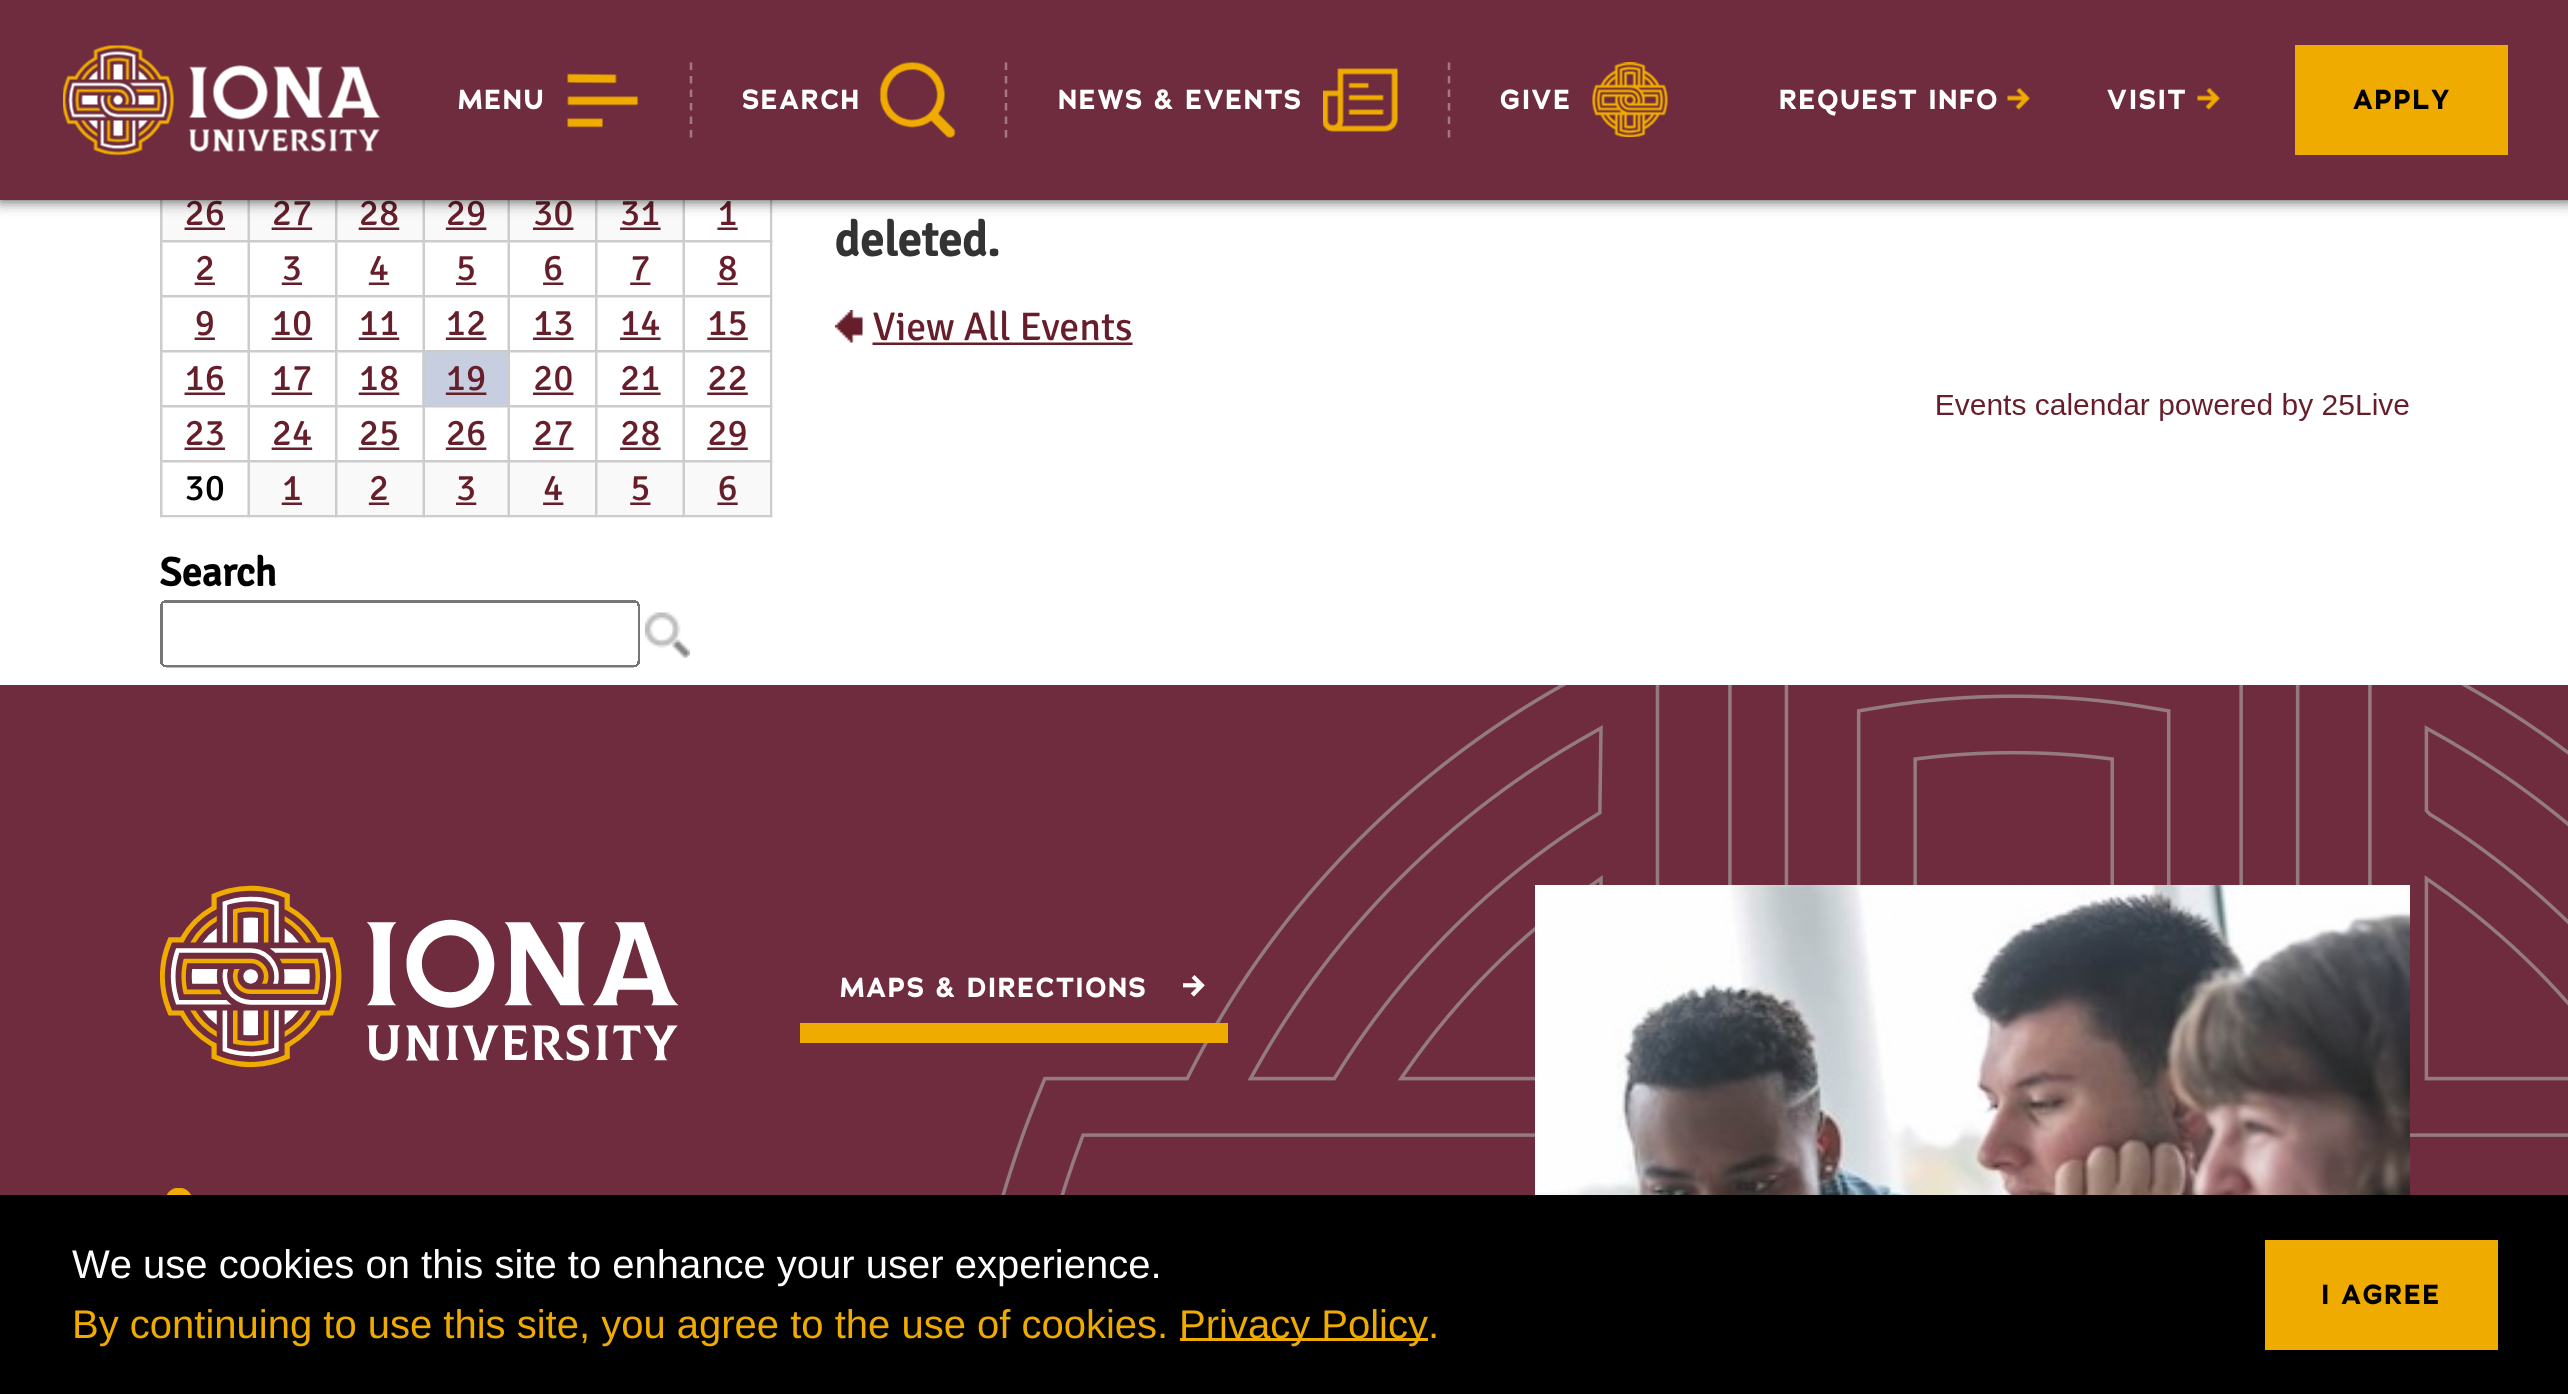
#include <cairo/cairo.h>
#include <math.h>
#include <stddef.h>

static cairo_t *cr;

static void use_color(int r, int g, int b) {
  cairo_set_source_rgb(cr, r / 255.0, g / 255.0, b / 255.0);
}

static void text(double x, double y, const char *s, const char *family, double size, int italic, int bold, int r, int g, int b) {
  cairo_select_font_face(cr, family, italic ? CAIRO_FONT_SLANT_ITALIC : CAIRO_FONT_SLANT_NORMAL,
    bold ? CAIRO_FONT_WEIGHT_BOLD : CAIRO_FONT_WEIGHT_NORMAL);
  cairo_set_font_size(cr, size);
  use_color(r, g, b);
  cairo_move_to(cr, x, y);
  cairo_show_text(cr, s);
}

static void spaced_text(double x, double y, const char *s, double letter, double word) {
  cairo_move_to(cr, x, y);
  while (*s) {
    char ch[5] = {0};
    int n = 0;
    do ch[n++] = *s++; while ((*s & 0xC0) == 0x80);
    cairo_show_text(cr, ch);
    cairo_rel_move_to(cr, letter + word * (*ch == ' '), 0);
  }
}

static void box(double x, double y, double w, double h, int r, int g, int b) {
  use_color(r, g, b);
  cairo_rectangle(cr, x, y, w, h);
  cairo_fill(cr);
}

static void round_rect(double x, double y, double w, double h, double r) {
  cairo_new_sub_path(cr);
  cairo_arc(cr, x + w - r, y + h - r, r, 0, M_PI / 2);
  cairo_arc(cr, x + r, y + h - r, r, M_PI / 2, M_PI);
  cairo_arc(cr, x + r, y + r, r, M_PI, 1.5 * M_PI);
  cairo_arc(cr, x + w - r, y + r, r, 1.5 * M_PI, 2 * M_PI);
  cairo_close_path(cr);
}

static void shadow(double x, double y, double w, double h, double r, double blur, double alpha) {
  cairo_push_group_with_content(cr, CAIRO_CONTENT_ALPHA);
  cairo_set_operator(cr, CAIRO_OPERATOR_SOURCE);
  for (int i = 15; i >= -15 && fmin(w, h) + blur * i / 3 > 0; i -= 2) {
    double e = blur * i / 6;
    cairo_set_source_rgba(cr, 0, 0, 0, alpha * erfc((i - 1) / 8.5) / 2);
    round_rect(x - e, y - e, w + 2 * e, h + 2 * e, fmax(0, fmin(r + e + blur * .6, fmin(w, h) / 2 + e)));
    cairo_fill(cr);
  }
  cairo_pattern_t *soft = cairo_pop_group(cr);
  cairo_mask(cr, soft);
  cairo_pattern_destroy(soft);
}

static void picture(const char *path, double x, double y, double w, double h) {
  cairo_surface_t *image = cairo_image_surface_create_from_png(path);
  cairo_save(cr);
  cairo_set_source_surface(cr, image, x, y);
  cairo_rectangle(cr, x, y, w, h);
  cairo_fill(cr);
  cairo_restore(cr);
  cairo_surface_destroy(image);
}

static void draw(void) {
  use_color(255, 255, 255);
  cairo_paint(cr);
  picture("img_07.png", 160, 200, 613, 318);
  picture("img_09.png", 835, 218, 1574, 203);
  use_color(0, 0, 0);
  shadow(0, 0, 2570, 200, 0, 7.5, 0.75);
  box(0, 0, 2568, 200, 111, 44, 62);
  picture("img_01.png", 63, 45, 318, 111);
  picture("img_02.png", 567, 73, 72, 55);
  cairo_new_path(cr);
  cairo_move_to(cr, 691, 62.5);
  cairo_line_to(cr, 691, 137.5);
  use_color(163, 120, 128);
  cairo_set_line_width(cr, 2.5);
  cairo_set_dash(cr, (double[]){7.5, 6}, 2, 0);
  cairo_stroke(cr);
  picture("img_03.png", 879, 62, 77, 76);
  cairo_new_path(cr);
  cairo_move_to(cr, 1006, 62.5);
  cairo_line_to(cr, 1006, 137.5);
  cairo_stroke(cr);
  picture("img_04.png", 1323, 68, 75, 64);
  cairo_new_path(cr);
  cairo_move_to(cr, 1449, 62.5);
  cairo_line_to(cr, 1449, 137.5);
  cairo_stroke(cr);
  picture("img_05.png", 1592, 62, 76, 75);
  picture("img_06.png", 2007, 87, 23, 23);
  picture("img_06.png", 2197, 87, 23, 23);
  box(2295, 45, 213, 110, 240, 171, 0);
  picture("img_08.png", 160, 554, 530, 114);
  box(0, 685, 2568, 510, 111, 44, 62);
  picture("img_10.png", 160, 885, 519, 183);
  picture("img_14.png", 1001, 685, 1567, 510);
  box(800, 1023, 428, 20, 240, 171, 0);
  picture("img_11.png", 1183, 975, 22, 22);
  picture("img_12.png", 166, 1188, 25, 7);
  picture("img_13.png", 1535, 885, 875, 310);
  box(0, 1195, 2568, 199, 0, 0, 0);
  box(1180, 1338, 248, 3, 240, 171, 0);
  box(2265, 1240, 233, 110, 240, 171, 0);
  cairo_select_font_face(cr, "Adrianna", CAIRO_FONT_SLANT_NORMAL, CAIRO_FONT_WEIGHT_BOLD);
  cairo_set_font_size(cr, 27.5);
  use_color(255, 255, 255);
  spaced_text(458, 109, "MENU", 1.4, 0);
  spaced_text(742, 109, "SEARCH", 1.4, 0);
  spaced_text(1058, 109, "NEWS & EVENTS", 1.4, 0);
  spaced_text(1500, 109, "GIVE", 1.4, 0);
  spaced_text(1779, 109, "REQUEST INFO", 1.4, 0);
  spaced_text(2107, 109, "VISIT", 1.4, 0);
  use_color(0, 0, 0);
  spaced_text(2353, 109, "APPLY", 1.4, 0);
  use_color(255, 255, 255);
  spaced_text(840, 997, "MAPS & DIRECTIONS", 1.4, 0);
  text(72, 1278, "We use cookies on this site to enhance your user experience.", "Liberation Sans", 40, 0, 0, 255, 255, 255);
  text(72, 1338, "By continuing to use this site, you agree to the use of cookies.", "Liberation Sans", 40, 0, 0, 240, 171, 0);
  text(1179, 1338, "Privacy Policy.", "Liberation Sans", 40, 0, 0, 240, 171, 0);
  cairo_select_font_face(cr, "Adrianna", CAIRO_FONT_SLANT_NORMAL, CAIRO_FONT_WEIGHT_BOLD);
  cairo_set_font_size(cr, 27.5);
  use_color(0, 0, 0);
  spaced_text(2321, 1304, "I AGREE", 1.4, 0);
}

int main(void) {
  cairo_surface_t *surface = cairo_image_surface_create(CAIRO_FORMAT_RGB24, 2568, 1394);
  cr = cairo_create(surface);
  cairo_font_options_t *options = cairo_font_options_create();
  cairo_font_options_set_hint_metrics(options, CAIRO_HINT_METRICS_OFF);
  cairo_font_options_set_hint_style(options, CAIRO_HINT_STYLE_NONE);
  cairo_set_font_options(cr, options);
  cairo_set_miter_limit(cr, 4);
  draw();
  cairo_surface_write_to_png(surface, "out.png");
  cairo_font_options_destroy(options);
  cairo_destroy(cr);
  cairo_surface_destroy(surface);
  return 0;
}
